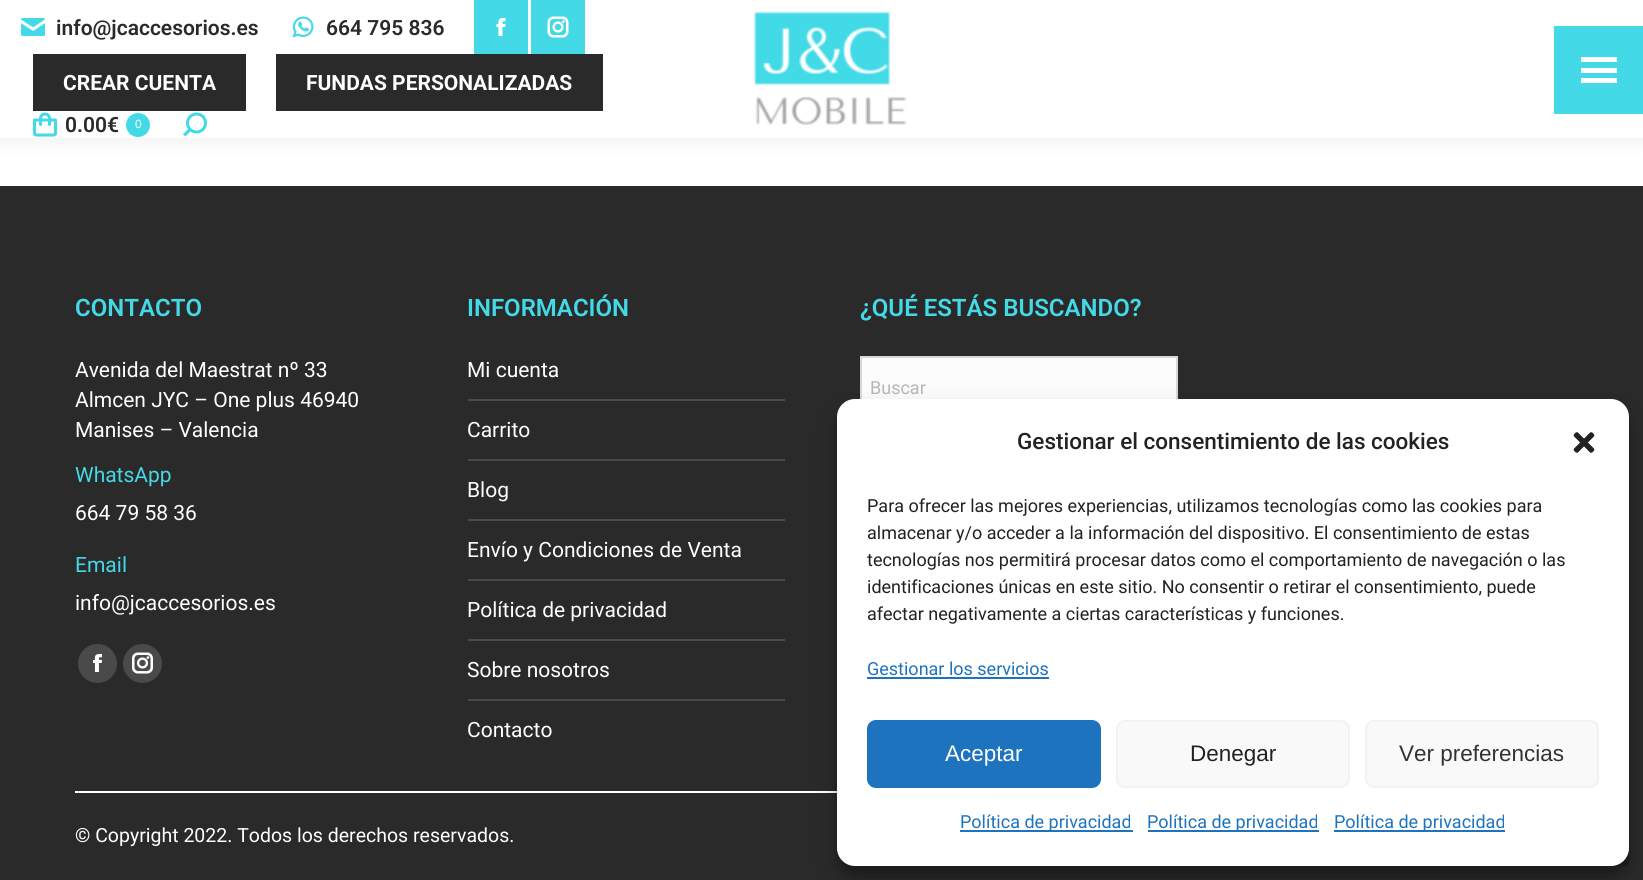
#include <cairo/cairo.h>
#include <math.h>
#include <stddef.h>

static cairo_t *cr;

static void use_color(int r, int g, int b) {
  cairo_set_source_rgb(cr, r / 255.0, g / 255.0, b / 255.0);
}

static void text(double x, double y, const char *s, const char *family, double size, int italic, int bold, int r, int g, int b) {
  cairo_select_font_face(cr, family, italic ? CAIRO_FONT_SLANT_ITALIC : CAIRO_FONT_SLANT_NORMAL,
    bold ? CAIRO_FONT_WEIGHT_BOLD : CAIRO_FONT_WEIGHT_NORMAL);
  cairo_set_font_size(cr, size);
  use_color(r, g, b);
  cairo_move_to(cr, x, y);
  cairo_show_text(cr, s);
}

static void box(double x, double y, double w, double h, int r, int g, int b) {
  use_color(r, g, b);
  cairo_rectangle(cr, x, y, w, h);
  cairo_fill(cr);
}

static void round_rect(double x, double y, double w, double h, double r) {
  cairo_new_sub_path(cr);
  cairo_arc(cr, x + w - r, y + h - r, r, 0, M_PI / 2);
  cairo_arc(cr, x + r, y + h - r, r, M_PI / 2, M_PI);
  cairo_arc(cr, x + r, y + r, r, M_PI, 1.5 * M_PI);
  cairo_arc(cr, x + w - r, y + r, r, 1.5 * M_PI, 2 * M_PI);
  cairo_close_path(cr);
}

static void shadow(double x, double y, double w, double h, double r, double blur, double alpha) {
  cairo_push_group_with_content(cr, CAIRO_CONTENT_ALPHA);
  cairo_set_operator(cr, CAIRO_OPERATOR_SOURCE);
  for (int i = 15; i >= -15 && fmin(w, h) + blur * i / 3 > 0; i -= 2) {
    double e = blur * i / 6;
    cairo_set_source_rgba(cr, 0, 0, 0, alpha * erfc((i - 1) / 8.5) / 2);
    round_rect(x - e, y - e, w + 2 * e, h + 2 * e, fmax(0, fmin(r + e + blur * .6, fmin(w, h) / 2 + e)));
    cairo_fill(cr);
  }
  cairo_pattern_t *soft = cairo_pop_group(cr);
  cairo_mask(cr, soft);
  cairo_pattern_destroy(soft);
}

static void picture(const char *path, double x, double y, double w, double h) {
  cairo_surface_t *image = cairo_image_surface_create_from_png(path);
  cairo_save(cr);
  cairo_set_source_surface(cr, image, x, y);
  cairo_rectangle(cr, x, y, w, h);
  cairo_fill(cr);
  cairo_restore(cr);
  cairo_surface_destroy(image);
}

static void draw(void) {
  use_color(255, 255, 255);
  cairo_paint(cr);
  use_color(0, 0, 0);
  shadow(-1, -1, 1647, 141, 0, 11, 0.07);
  box(0, 0, 1643, 138, 255, 255, 255);
  picture("img_01.png", 21, 18, 24, 18);
  picture("img_02.png", 292, 16, 22, 22);
  box(474, 0, 54, 54, 68, 217, 230);
  picture("img_03.png", 496, 18, 10, 18);
  box(531, 0, 54, 54, 68, 217, 230);
  picture("img_04.png", 547, 16, 22, 22);
  box(33, 54, 213, 57, 42, 42, 42);
  box(276, 54, 327, 57, 42, 42, 42);
  picture("img_05.png", 33, 112, 24, 25);
  use_color(68, 217, 230);
  cairo_arc(cr, 138, 125, 12, 0, 2 * M_PI);
  cairo_fill(cr);
  picture("img_06.png", 183, 112, 24, 25);
  picture("img_07.png", 754, 11, 153, 114);
  box(1554, 26, 89, 88, 68, 217, 230);
  box(1581, 57, 36, 5, 255, 255, 255);
  box(1581, 68, 36, 5, 255, 255, 255);
  box(1581, 78, 36, 5, 255, 255, 255);
  box(0, 186, 1643, 694, 42, 42, 42);
  use_color(74, 74, 74);
  cairo_arc(cr, 97.5, 663.5, 19.5, 0, 2 * M_PI);
  cairo_fill(cr);
  picture("img_08.png", 92, 654, 11, 18);
  cairo_arc(cr, 142.5, 663.5, 19.5, 0, 2 * M_PI);
  cairo_fill(cr);
  picture("img_09.png", 132, 652, 21, 22);
  box(468, 399, 317, 2, 74, 74, 74);
  box(468, 459, 317, 2, 74, 74, 74);
  box(468, 519, 317, 2, 74, 74, 74);
  box(468, 579, 317, 2, 74, 74, 74);
  box(468, 639, 317, 2, 74, 74, 74);
  box(468, 699, 317, 2, 74, 74, 74);
  box(862, 358, 314, 41, 252, 252, 252);
  cairo_rectangle(cr, 861, 357, 316, 64);
  use_color(216, 216, 216);
  cairo_stroke(cr);
  box(75, 791, 762, 2, 255, 255, 255);
  box(1611, 848, 18, 18, 34, 34, 34);
  use_color(0, 0, 0);
  shadow(837, 408, 792, 467, 18, 4.5, 0.23);
  shadow(837, 414, 792, 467, 18, 15, 0.19);
  use_color(255, 255, 255);
  round_rect(837, 399, 792, 467, 18);
  cairo_fill(cr);
  picture("img_10.png", 1573, 432, 22, 21);
  box(867, 677, 182, 2, 30, 115, 190);
  round_rect(868, 721, 232, 66, 8);
  cairo_fill_preserve(cr);
  cairo_stroke(cr);
  use_color(249, 249, 249);
  round_rect(1117, 721, 232, 66, 8);
  cairo_fill_preserve(cr);
  use_color(242, 242, 242);
  cairo_stroke(cr);
  use_color(249, 249, 249);
  round_rect(1366, 721, 232, 66, 8);
  cairo_fill_preserve(cr);
  use_color(242, 242, 242);
  cairo_stroke(cr);
  box(960, 830, 173, 2, 30, 115, 190);
  box(1148, 830, 171, 2, 30, 115, 190);
  box(1334, 830, 171, 2, 30, 115, 190);
  text(56, 35, "info@jcaccesorios.es", "Roboto SemiBold", 21, 0, 0, 42, 42, 42);
  text(326, 35, "664 795 836", "Roboto SemiBold", 21, 0, 0, 42, 42, 42);
  text(63, 90, "CREAR CUENTA", "Roboto", 21, 0, 1, 255, 255, 255);
  text(306, 90, "FUNDAS PERSONALIZADAS", "Roboto", 21, 0, 1, 255, 255, 255);
  text(65, 132, "0.00€", "Roboto SemiBold", 21, 0, 0, 42, 42, 42);
  text(135, 128, "0", "Liberation Sans", 12, 0, 0, 255, 255, 255);
  text(75, 316, "CONTACTO", "Roboto SemiBold", 24, 0, 0, 68, 217, 230);
  text(75, 377, "Avenida del Maestrat nº 33", "Roboto", 21, 0, 0, 255, 255, 255);
  text(75, 407, "Almcen JYC – One plus 46940", "Roboto", 21, 0, 0, 255, 255, 255);
  text(75, 437, "Manises – Valencia", "Roboto", 21, 0, 0, 255, 255, 255);
  text(75, 482, "WhatsApp", "Roboto", 21, 0, 0, 68, 217, 230);
  text(75, 520, "664 79 58 36", "Roboto", 21, 0, 0, 255, 255, 255);
  text(75, 572, "Email", "Roboto", 21, 0, 0, 68, 217, 230);
  text(75, 610, "info@jcaccesorios.es", "Roboto", 21, 0, 0, 255, 255, 255);
  text(467, 316, "INFORMACIÓN", "Roboto SemiBold", 24, 0, 0, 68, 217, 230);
  text(467, 377, "Mi cuenta", "Roboto", 21, 0, 0, 255, 255, 255);
  text(467, 437, "Carrito", "Roboto", 21, 0, 0, 255, 255, 255);
  text(467, 497, "Blog", "Roboto", 21, 0, 0, 255, 255, 255);
  text(467, 557, "Envío y Condiciones de Venta", "Roboto", 21, 0, 0, 255, 255, 255);
  text(467, 617, "Política de privacidad", "Roboto", 21, 0, 0, 255, 255, 255);
  text(467, 677, "Sobre nosotros", "Roboto", 21, 0, 0, 255, 255, 255);
  text(467, 737, "Contacto", "Roboto", 21, 0, 0, 255, 255, 255);
  text(860, 316, "¿QUÉ ESTÁS BUSCANDO?", "Roboto SemiBold", 24, 0, 0, 68, 217, 230);
  text(870, 394, "Buscar", "Roboto", 18, 0, 0, 180, 182, 184);
  text(75, 842, "© Copyright 2022. Todos los derechos reservados.", "Roboto", 19.5, 0, 0, 255, 255, 255);
  text(1017, 449, "Gestionar el consentimiento de las cookies", "Roboto Medium", 22.5, 0, 0, 34, 34, 34);
  text(867, 512, "Para ofrecer las mejores experiencias, utilizamos tecnologías como las cookies para", "Roboto", 18, 0, 0, 34, 34, 34);
  text(867, 539, "almacenar y/o acceder a la información del dispositivo. El consentimiento de estas", "Roboto", 18, 0, 0, 34, 34, 34);
  text(867, 566, "tecnologías nos permitirá procesar datos como el comportamiento de navegación o las", "Roboto", 18, 0, 0, 34, 34, 34);
  text(867, 593, "identificaciones únicas en este sitio. No consentir o retirar el consentimiento, puede", "Roboto", 18, 0, 0, 34, 34, 34);
  text(867, 620, "afectar negativamente a ciertas características y funciones.", "Roboto", 18, 0, 0, 34, 34, 34);
  text(867, 675, "Gestionar los servicios", "Roboto", 18, 0, 0, 30, 115, 190);
  text(945, 761, "Aceptar", "Liberation Sans", 22.5, 0, 0, 255, 255, 255);
  text(1190, 761, "Denegar", "Liberation Sans", 22.5, 0, 0, 34, 34, 34);
  text(1399, 761, "Ver preferencias", "Liberation Sans", 22.5, 0, 0, 51, 51, 51);
  text(960, 828, "Política de privacidad", "Roboto", 18, 0, 0, 30, 115, 190);
  text(1147, 828, "Política de privacidad", "Roboto", 18, 0, 0, 30, 115, 190);
  text(1334, 828, "Política de privacidad", "Roboto", 18, 0, 0, 30, 115, 190);
}

int main(void) {
  cairo_surface_t *surface = cairo_image_surface_create(CAIRO_FORMAT_RGB24, 1643, 880);
  cr = cairo_create(surface);
  cairo_font_options_t *options = cairo_font_options_create();
  cairo_font_options_set_hint_metrics(options, CAIRO_HINT_METRICS_OFF);
  cairo_font_options_set_hint_style(options, CAIRO_HINT_STYLE_NONE);
  cairo_set_font_options(cr, options);
  cairo_set_miter_limit(cr, 4);
  draw();
  cairo_surface_write_to_png(surface, "out.png");
  cairo_font_options_destroy(options);
  cairo_destroy(cr);
  cairo_surface_destroy(surface);
  return 0;
}
